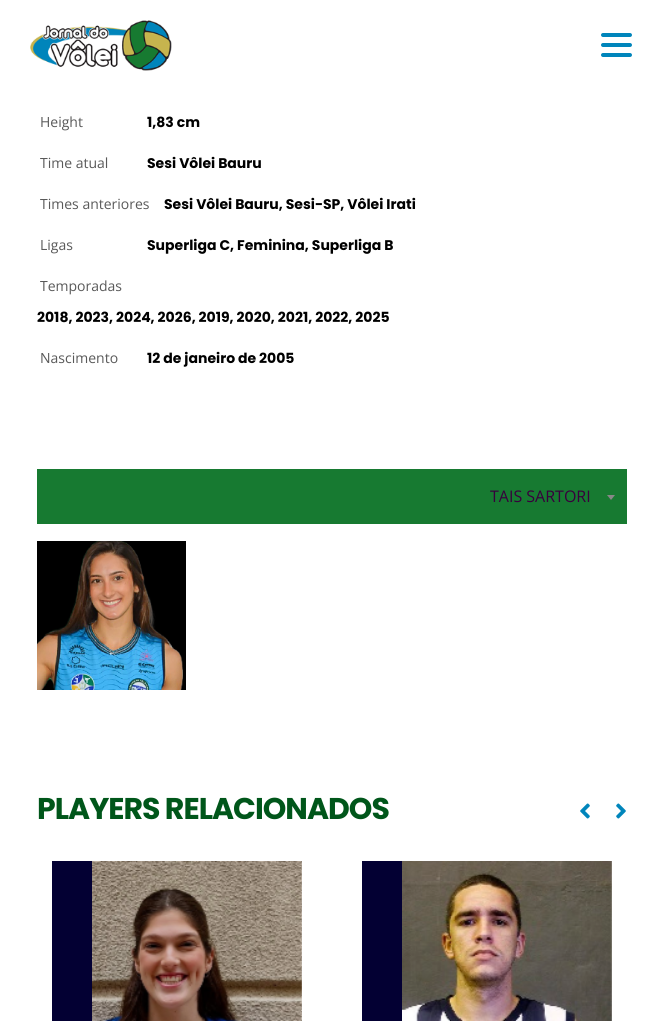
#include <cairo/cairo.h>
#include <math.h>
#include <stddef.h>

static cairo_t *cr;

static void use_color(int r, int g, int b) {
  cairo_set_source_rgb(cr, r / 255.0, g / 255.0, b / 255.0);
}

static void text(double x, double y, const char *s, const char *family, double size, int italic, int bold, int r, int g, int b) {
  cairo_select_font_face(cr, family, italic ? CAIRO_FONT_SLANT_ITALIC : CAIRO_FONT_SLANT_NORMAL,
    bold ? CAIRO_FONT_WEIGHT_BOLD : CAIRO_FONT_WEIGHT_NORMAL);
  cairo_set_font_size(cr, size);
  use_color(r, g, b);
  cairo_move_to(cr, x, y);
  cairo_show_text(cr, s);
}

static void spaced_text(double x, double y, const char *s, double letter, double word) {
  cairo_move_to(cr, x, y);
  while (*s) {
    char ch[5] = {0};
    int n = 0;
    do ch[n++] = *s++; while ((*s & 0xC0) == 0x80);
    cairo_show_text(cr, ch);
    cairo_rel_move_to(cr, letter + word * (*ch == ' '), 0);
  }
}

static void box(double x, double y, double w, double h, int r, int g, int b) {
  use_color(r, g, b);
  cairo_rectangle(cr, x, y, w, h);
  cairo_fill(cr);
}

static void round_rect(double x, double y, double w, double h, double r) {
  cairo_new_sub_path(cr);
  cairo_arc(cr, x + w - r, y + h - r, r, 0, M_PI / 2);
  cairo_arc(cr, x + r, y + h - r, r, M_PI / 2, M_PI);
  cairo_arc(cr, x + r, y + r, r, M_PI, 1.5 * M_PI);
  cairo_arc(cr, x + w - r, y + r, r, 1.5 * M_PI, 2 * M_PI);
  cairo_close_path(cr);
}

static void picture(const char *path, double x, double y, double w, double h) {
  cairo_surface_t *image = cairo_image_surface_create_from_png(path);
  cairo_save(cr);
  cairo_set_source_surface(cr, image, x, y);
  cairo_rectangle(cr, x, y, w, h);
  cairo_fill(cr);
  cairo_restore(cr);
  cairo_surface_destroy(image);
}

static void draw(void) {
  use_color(255, 255, 255);
  cairo_paint(cr);
  picture("img_01.png", 30, 20, 142, 51);
  use_color(0, 133, 187);
  round_rect(601, 33, 31, 4, 2);
  cairo_fill(cr);
  round_rect(601, 43, 31, 4, 2);
  cairo_fill(cr);
  round_rect(601, 53, 31, 4, 2);
  cairo_fill(cr);
  box(37, 469, 590, 55, 23, 122, 49);
  use_color(136, 136, 136);
  cairo_new_path(cr);
  cairo_move_to(cr, 607, 495);
  cairo_line_to(cr, 615, 495);
  cairo_line_to(cr, 611, 500);
  cairo_close_path(cr);
  cairo_fill(cr);
  picture("img_02.png", 37, 541, 149, 149);
  picture("img_03.png", 580, 803, 10, 16);
  picture("img_04.png", 616, 803, 10, 16);
  box(52, 861, 40, 160, 3, 0, 51);
  picture("img_05.png", 92, 861, 210, 160);
  box(362, 861, 40, 160, 3, 0, 51);
  picture("img_06.png", 402, 861, 210, 160);
  text(40, 127, "Height", "Open Sans", 14, 0, 0, 89, 89, 89);
  text(147, 127, "1,83 cm", "Poppins", 14, 0, 1, 0, 0, 0);
  text(40, 168, "Time atual", "Open Sans", 14, 0, 0, 89, 89, 89);
  text(147, 168, "Sesi Vôlei Bauru", "Poppins", 14, 0, 1, 0, 0, 0);
  text(40, 209, "Times anteriores", "Open Sans", 14, 0, 0, 89, 89, 89);
  text(164, 209, "Sesi Vôlei Bauru, Sesi-SP, Vôlei Irati", "Poppins", 14, 0, 1, 0, 0, 0);
  text(40, 250, "Ligas", "Open Sans", 14, 0, 0, 89, 89, 89);
  text(147, 250, "Superliga C, Feminina, Superliga B", "Poppins", 14, 0, 1, 0, 0, 0);
  text(40, 291, "Temporadas", "Open Sans", 14, 0, 0, 89, 89, 89);
  text(37, 322, "2018, 2023, 2024, 2026, 2019, 2020, 2021, 2022, 2025", "Poppins", 14, 0, 1, 0, 0, 0);
  text(40, 363, "Nascimento", "Open Sans", 14, 0, 0, 89, 89, 89);
  text(147, 363, "12 de janeiro de 2005", "Poppins", 14, 0, 1, 0, 0, 0);
  text(490, 502, "TAIS SARTORI", "Open Sans", 16, 0, 0, 55, 0, 60);
  cairo_select_font_face(cr, "Poppins", CAIRO_FONT_SLANT_NORMAL, CAIRO_FONT_WEIGHT_BOLD);
  cairo_set_font_size(cr, 30);
  use_color(0, 86, 26);
  spaced_text(37, 819, "PLAYERS RELACIONADOS", -1, 0);
}

int main(void) {
  cairo_surface_t *surface = cairo_image_surface_create(CAIRO_FORMAT_RGB24, 663, 1021);
  cr = cairo_create(surface);
  cairo_font_options_t *options = cairo_font_options_create();
  cairo_font_options_set_hint_metrics(options, CAIRO_HINT_METRICS_OFF);
  cairo_font_options_set_hint_style(options, CAIRO_HINT_STYLE_NONE);
  cairo_set_font_options(cr, options);
  cairo_set_miter_limit(cr, 4);
  draw();
  cairo_surface_write_to_png(surface, "out.png");
  cairo_font_options_destroy(options);
  cairo_destroy(cr);
  cairo_surface_destroy(surface);
  return 0;
}
